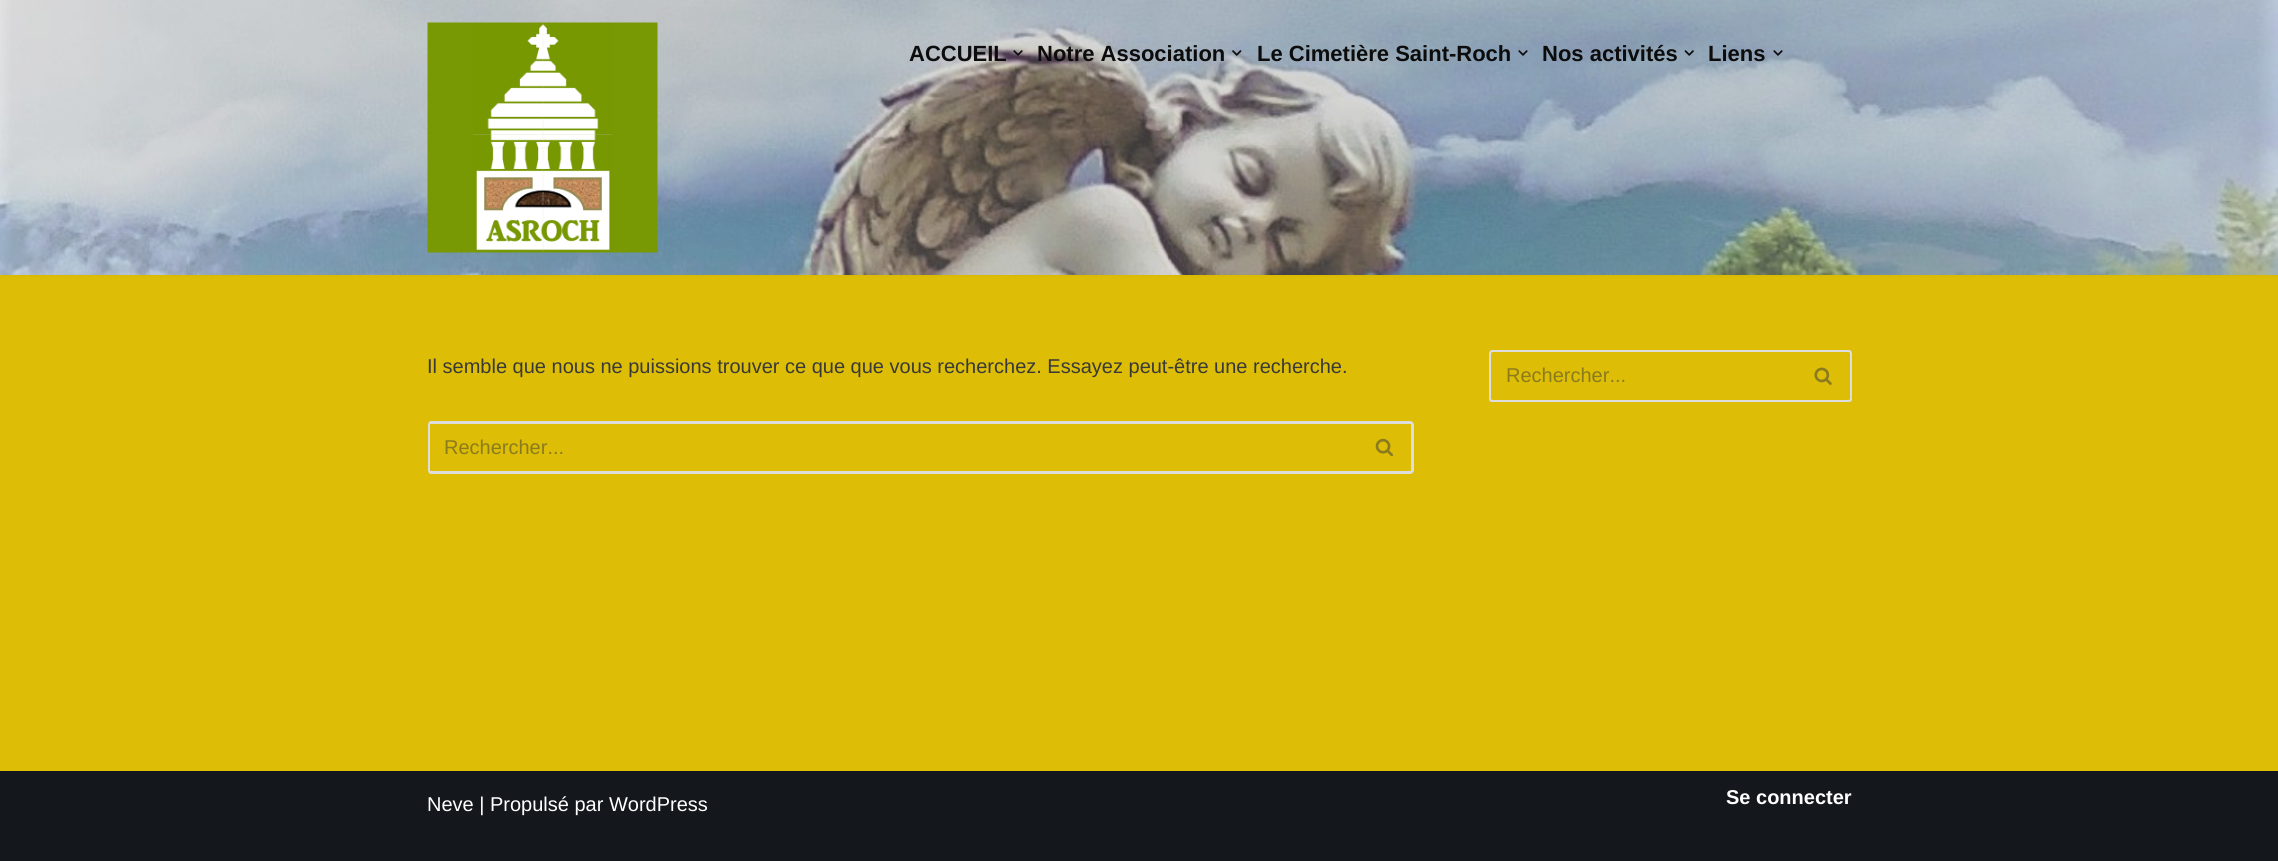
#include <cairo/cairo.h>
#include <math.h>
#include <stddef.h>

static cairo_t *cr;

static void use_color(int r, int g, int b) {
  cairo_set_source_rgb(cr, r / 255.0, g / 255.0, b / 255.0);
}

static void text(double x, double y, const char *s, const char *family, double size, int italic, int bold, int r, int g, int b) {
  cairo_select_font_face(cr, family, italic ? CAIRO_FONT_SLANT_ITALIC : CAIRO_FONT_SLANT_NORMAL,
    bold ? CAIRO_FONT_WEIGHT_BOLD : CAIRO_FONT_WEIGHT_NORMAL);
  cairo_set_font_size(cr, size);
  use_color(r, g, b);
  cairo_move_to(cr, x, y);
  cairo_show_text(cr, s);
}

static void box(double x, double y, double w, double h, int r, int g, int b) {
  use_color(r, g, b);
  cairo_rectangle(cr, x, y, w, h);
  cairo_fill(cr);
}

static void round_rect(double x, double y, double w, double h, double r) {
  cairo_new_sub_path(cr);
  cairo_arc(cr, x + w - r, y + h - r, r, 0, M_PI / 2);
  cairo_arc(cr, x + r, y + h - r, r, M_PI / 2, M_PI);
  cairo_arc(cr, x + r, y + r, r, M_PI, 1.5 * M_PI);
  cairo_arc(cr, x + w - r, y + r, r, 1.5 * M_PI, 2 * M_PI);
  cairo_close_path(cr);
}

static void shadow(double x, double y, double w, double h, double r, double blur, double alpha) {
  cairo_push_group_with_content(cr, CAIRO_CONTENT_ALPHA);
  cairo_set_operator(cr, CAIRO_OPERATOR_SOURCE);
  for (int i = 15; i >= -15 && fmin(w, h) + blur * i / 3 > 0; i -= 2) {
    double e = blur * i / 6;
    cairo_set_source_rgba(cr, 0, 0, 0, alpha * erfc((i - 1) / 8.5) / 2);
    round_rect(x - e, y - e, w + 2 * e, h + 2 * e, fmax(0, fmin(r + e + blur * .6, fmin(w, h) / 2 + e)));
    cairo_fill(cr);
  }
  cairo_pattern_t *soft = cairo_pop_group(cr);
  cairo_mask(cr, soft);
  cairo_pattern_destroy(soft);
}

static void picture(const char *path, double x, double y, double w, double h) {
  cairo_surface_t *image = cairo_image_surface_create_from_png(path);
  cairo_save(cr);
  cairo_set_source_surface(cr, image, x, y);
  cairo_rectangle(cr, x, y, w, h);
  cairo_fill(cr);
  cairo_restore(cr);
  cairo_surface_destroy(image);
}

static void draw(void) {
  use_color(221, 189, 5);
  cairo_paint(cr);
  use_color(0, 0, 0);
  shadow(0, -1, 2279, 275, 0, 2, 0.1);
  picture("img_01.png", 0, 0, 2278, 275);
  picture("img_02.png", 427, 22, 231, 231);
  picture("img_03.png", 1013, 50, 10, 6);
  picture("img_04.png", 1232, 50, 10, 6);
  picture("img_05.png", 1518, 50, 10, 6);
  picture("img_06.png", 1684, 50, 10, 6);
  picture("img_07.png", 1773, 50, 10, 6);
  use_color(221, 221, 221);
  cairo_set_fill_rule(cr, CAIRO_FILL_RULE_EVEN_ODD);
  cairo_new_path(cr);
  cairo_move_to(cr, 431, 421);
  cairo_line_to(cr, 1358, 421);
  cairo_line_to(cr, 1358, 474);
  cairo_line_to(cr, 431, 474);
  cairo_curve_to(cr, 429, 474, 428, 472, 428, 470);
  cairo_line_to(cr, 428, 425);
  cairo_curve_to(cr, 428, 423, 429, 421, 431, 421);
  cairo_close_path(cr);
  cairo_move_to(cr, 431, 424);
  cairo_line_to(cr, 1358, 424);
  cairo_line_to(cr, 1358, 471);
  cairo_line_to(cr, 431, 471);
  cairo_curve_to(cr, 431, 471, 430, 471, 430, 470);
  cairo_line_to(cr, 430, 425);
  cairo_curve_to(cr, 430, 424, 431, 424, 431, 424);
  cairo_close_path(cr);
  cairo_fill(cr);
  cairo_new_path(cr);
  cairo_move_to(cr, 1358, 421);
  cairo_line_to(cr, 1410, 421);
  cairo_curve_to(cr, 1412, 421, 1414, 423, 1414, 425);
  cairo_line_to(cr, 1414, 470);
  cairo_curve_to(cr, 1414, 472, 1412, 474, 1410, 474);
  cairo_line_to(cr, 1358, 474);
  cairo_close_path(cr);
  cairo_move_to(cr, 1358, 424);
  cairo_line_to(cr, 1410, 424);
  cairo_curve_to(cr, 1411, 424, 1411, 424, 1411, 425);
  cairo_line_to(cr, 1411, 470);
  cairo_curve_to(cr, 1411, 471, 1411, 471, 1410, 471);
  cairo_line_to(cr, 1358, 471);
  cairo_close_path(cr);
  cairo_fill(cr);
  picture("img_08.png", 1375, 438, 18, 18);
  cairo_new_path(cr);
  cairo_move_to(cr, 1492, 350);
  cairo_line_to(cr, 1796, 350);
  cairo_line_to(cr, 1796, 402);
  cairo_line_to(cr, 1492, 402);
  cairo_curve_to(cr, 1490, 402, 1489, 401, 1489, 399);
  cairo_line_to(cr, 1489, 354);
  cairo_curve_to(cr, 1489, 352, 1490, 350, 1492, 350);
  cairo_close_path(cr);
  cairo_move_to(cr, 1492, 352);
  cairo_line_to(cr, 1796, 352);
  cairo_line_to(cr, 1796, 400);
  cairo_line_to(cr, 1492, 400);
  cairo_curve_to(cr, 1492, 400, 1491, 399, 1491, 399);
  cairo_line_to(cr, 1491, 354);
  cairo_curve_to(cr, 1491, 353, 1492, 352, 1492, 352);
  cairo_close_path(cr);
  cairo_fill(cr);
  cairo_new_path(cr);
  cairo_move_to(cr, 1796, 350);
  cairo_line_to(cr, 1849, 350);
  cairo_curve_to(cr, 1851, 350, 1852, 352, 1852, 354);
  cairo_line_to(cr, 1852, 399);
  cairo_curve_to(cr, 1852, 401, 1851, 402, 1849, 402);
  cairo_line_to(cr, 1796, 402);
  cairo_close_path(cr);
  cairo_move_to(cr, 1796, 352);
  cairo_line_to(cr, 1849, 352);
  cairo_curve_to(cr, 1849, 352, 1850, 353, 1850, 354);
  cairo_line_to(cr, 1850, 399);
  cairo_curve_to(cr, 1850, 399, 1849, 400, 1849, 400);
  cairo_line_to(cr, 1796, 400);
  cairo_close_path(cr);
  cairo_fill(cr);
  picture("img_09.png", 1814, 367, 18, 18);
  box(0, 771, 2278, 90, 20, 23, 28);
  text(909, 61, "ACCUEIL", "Liberation Sans", 22, 0, 1, 12, 12, 12);
  text(1037, 61, "Notre Association", "Liberation Sans", 22, 0, 1, 12, 12, 12);
  text(1257, 61, "Le Cimetière Saint-Roch", "Liberation Sans", 22, 0, 1, 12, 12, 12);
  text(1542, 61, "Nos activités", "Liberation Sans", 22, 0, 1, 12, 12, 12);
  text(1708, 61, "Liens", "Liberation Sans", 22, 0, 1, 12, 12, 12);
  text(427, 373, "Il semble que nous ne puissions trouver ce que que vous recherchez. Essayez peut-être une recherche.", "Liberation Sans", 20, 0, 0, 57, 57, 57);
  text(444, 454, "Rechercher...", "Liberation Sans", 20, 0, 0, 139, 123, 31);
  text(1506, 382, "Rechercher...", "Liberation Sans", 20, 0, 0, 139, 123, 31);
  text(427, 811, "Neve | Propulsé par WordPress", "Liberation Sans", 20, 0, 0, 255, 255, 255);
  text(1726, 804, "Se connecter", "Liberation Sans", 20, 0, 1, 255, 255, 255);
}

int main(void) {
  cairo_surface_t *surface = cairo_image_surface_create(CAIRO_FORMAT_RGB24, 2278, 861);
  cr = cairo_create(surface);
  cairo_font_options_t *options = cairo_font_options_create();
  cairo_font_options_set_hint_metrics(options, CAIRO_HINT_METRICS_OFF);
  cairo_font_options_set_hint_style(options, CAIRO_HINT_STYLE_NONE);
  cairo_set_font_options(cr, options);
  cairo_set_miter_limit(cr, 4);
  draw();
  cairo_surface_write_to_png(surface, "out.png");
  cairo_font_options_destroy(options);
  cairo_destroy(cr);
  cairo_surface_destroy(surface);
  return 0;
}
